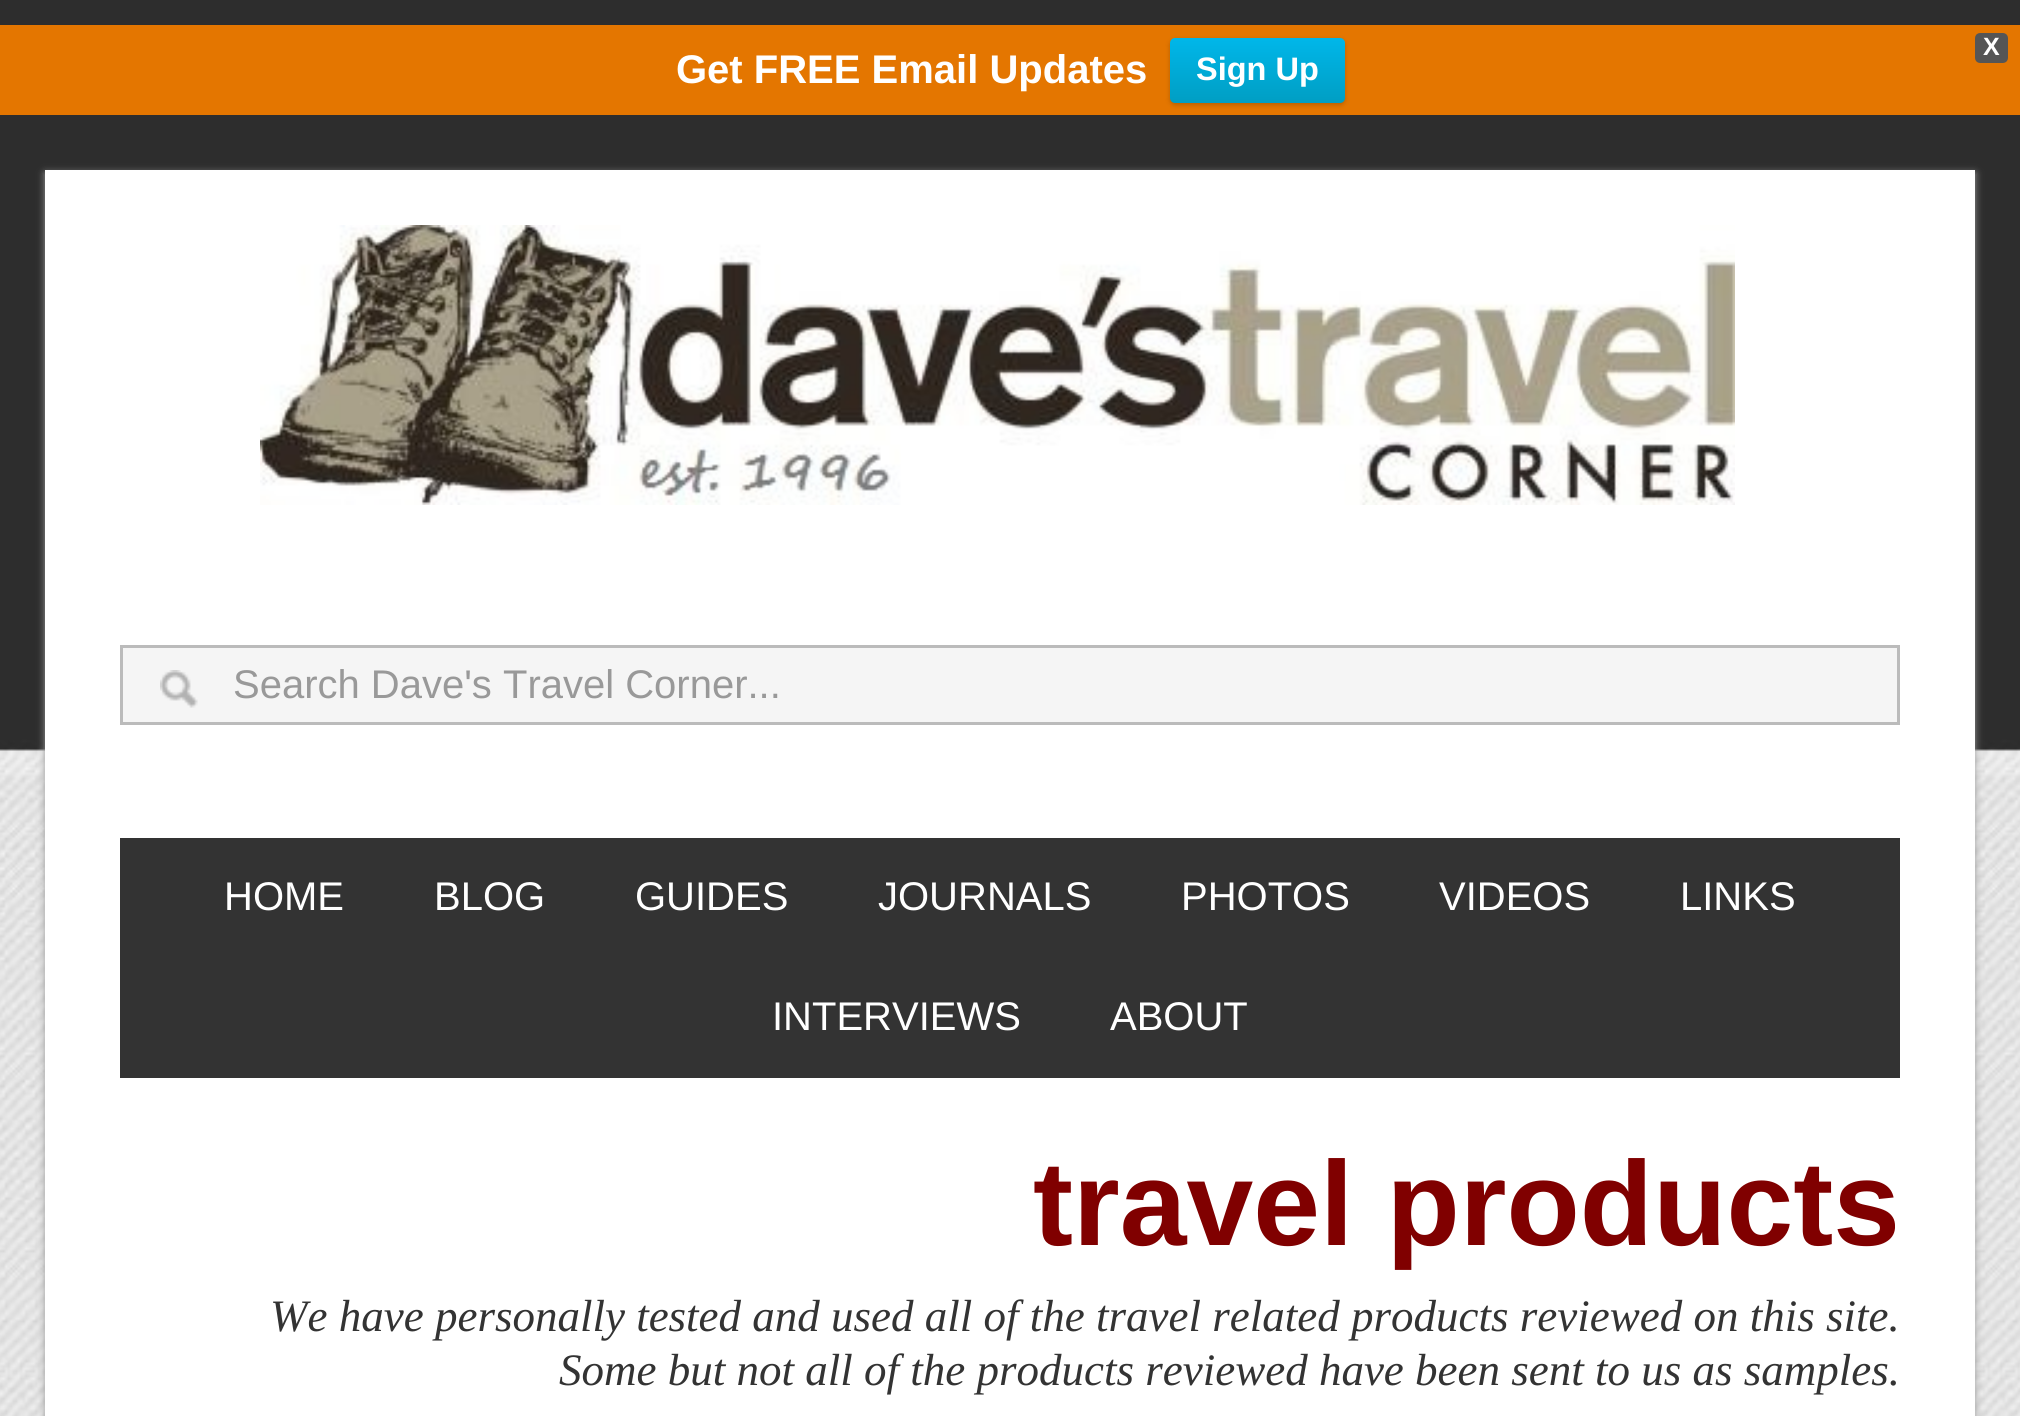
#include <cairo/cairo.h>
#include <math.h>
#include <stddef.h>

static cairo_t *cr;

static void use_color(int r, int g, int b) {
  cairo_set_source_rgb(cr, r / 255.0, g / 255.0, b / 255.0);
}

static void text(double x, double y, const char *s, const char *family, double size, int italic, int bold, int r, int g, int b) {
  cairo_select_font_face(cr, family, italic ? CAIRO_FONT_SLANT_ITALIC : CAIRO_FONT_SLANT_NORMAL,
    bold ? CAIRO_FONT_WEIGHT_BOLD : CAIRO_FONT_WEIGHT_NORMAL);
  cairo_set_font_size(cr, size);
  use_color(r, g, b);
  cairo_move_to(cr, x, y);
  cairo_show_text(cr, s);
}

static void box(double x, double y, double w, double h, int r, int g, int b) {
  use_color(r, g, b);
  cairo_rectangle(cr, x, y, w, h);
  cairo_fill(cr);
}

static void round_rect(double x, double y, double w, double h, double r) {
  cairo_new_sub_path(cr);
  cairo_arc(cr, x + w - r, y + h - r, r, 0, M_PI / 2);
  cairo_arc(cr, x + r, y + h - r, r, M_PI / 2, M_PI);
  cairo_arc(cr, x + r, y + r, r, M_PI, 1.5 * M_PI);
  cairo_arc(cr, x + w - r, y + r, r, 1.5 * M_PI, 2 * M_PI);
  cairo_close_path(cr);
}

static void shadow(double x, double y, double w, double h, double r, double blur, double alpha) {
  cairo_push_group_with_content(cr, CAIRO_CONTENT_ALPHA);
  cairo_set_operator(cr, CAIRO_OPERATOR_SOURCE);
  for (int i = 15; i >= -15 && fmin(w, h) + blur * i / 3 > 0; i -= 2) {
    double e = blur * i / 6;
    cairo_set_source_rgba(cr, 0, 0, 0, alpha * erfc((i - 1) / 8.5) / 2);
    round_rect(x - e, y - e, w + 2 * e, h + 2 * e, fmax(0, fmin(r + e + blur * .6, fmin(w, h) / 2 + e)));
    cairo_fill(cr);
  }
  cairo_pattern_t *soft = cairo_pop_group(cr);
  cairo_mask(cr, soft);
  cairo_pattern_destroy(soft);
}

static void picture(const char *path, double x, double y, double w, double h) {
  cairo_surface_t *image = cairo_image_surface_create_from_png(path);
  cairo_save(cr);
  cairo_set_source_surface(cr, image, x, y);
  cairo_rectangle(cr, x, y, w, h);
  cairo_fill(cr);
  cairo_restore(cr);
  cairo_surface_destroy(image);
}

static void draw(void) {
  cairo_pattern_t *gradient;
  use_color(255, 255, 255);
  cairo_paint(cr);
  picture("img_01.png", 0, 0, 2020, 1416);
  box(0, 25, 2020, 90, 228, 118, 0);
  use_color(85, 85, 85);
  round_rect(1976.5, 34.5, 30, 27, 3.5);
  cairo_fill_preserve(cr);
  cairo_set_line_width(cr, 3);
  cairo_stroke(cr);
  use_color(0, 0, 0);
  shadow(1170, 40, 175, 65, 5, 2.5, 0.2);
  gradient = cairo_pattern_create_linear(1258, 37, 1258, 103);
  cairo_pattern_add_color_stop_rgba(gradient, 0, 0, 0.718, 0.918, 1);
  cairo_pattern_add_color_stop_rgba(gradient, 1, 0, 0.62, 0.765, 1);
  cairo_set_source(cr, gradient);
  cairo_pattern_destroy(gradient);
  round_rect(1170, 38, 175, 65, 5);
  cairo_fill(cr);
  use_color(153, 153, 153);
  shadow(45, 173, 1930, 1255, 0, 4, 1);
  box(45, 170, 1930, 1246, 255, 255, 255);
  picture("img_02.png", 260, 225, 1475, 280);
  box(123, 648, 1774, 74, 245, 245, 245);
  picture("img_03.png", 160, 670, 38, 38);
  cairo_rectangle(cr, 121.5, 646.5, 1777, 77);
  use_color(187, 187, 187);
  cairo_stroke(cr);
  box(120, 838, 1780, 240, 51, 51, 51);
  text(1983, 55, "X", "Liberation Sans", 25, 0, 1, 255, 255, 255);
  text(676, 83, "Get FREE Email Updates", "Liberation Sans", 40, 0, 1, 255, 255, 255);
  text(1196, 80, "Sign Up", "Liberation Sans", 32.5, 0, 1, 255, 255, 255);
  text(233, 698, "Search Dave's Travel Corner...", "Liberation Sans", 40, 0, 0, 153, 153, 153);
  text(224, 910, "HOME", "Liberation Sans", 40, 0, 0, 255, 255, 255);
  text(434, 910, "BLOG", "Liberation Sans", 40, 0, 0, 255, 255, 255);
  text(635, 910, "GUIDES", "Liberation Sans", 40, 0, 0, 255, 255, 255);
  text(878, 910, "JOURNALS", "Liberation Sans", 40, 0, 0, 255, 255, 255);
  text(1181, 910, "PHOTOS", "Liberation Sans", 40, 0, 0, 255, 255, 255);
  text(1439, 910, "VIDEOS", "Liberation Sans", 40, 0, 0, 255, 255, 255);
  text(1680, 910, "LINKS", "Liberation Sans", 40, 0, 0, 255, 255, 255);
  text(772, 1030, "INTERVIEWS", "Liberation Sans", 40, 0, 0, 255, 255, 255);
  text(1110, 1030, "ABOUT", "Liberation Sans", 40, 0, 0, 255, 255, 255);
  text(1033, 1245, "travel products", "Liberation Sans", 120, 0, 1, 128, 0, 0);
  text(270, 1331, "We have personally tested and used all of the travel related products reviewed on this site.", "Liberation Serif", 45, 1, 0, 51, 51, 51);
  text(559, 1385, "Some but not all of the products reviewed have been sent to us as samples.", "Liberation Serif", 45, 1, 0, 51, 51, 51);
}

int main(void) {
  cairo_surface_t *surface = cairo_image_surface_create(CAIRO_FORMAT_RGB24, 2020, 1416);
  cr = cairo_create(surface);
  cairo_font_options_t *options = cairo_font_options_create();
  cairo_font_options_set_hint_metrics(options, CAIRO_HINT_METRICS_OFF);
  cairo_font_options_set_hint_style(options, CAIRO_HINT_STYLE_NONE);
  cairo_set_font_options(cr, options);
  cairo_set_miter_limit(cr, 4);
  draw();
  cairo_surface_write_to_png(surface, "out.png");
  cairo_font_options_destroy(options);
  cairo_destroy(cr);
  cairo_surface_destroy(surface);
  return 0;
}
